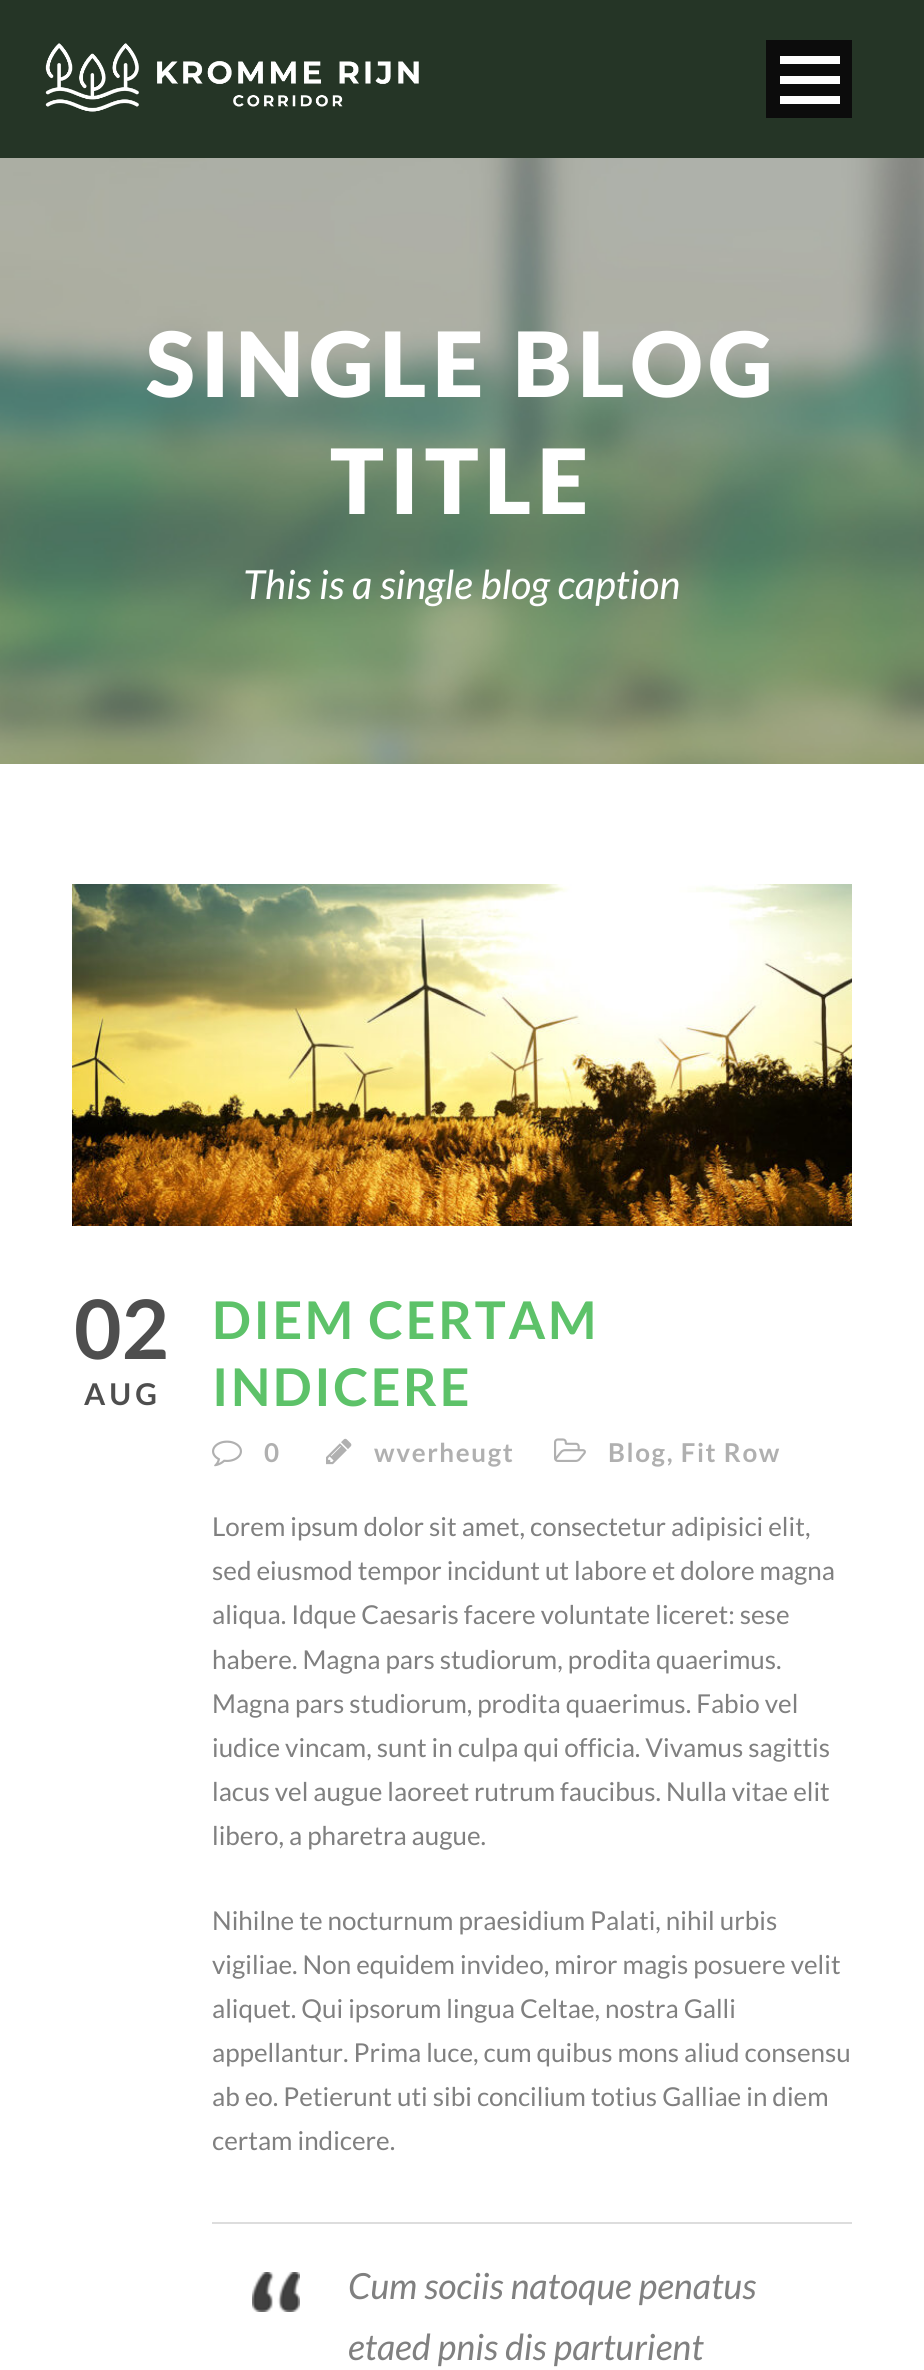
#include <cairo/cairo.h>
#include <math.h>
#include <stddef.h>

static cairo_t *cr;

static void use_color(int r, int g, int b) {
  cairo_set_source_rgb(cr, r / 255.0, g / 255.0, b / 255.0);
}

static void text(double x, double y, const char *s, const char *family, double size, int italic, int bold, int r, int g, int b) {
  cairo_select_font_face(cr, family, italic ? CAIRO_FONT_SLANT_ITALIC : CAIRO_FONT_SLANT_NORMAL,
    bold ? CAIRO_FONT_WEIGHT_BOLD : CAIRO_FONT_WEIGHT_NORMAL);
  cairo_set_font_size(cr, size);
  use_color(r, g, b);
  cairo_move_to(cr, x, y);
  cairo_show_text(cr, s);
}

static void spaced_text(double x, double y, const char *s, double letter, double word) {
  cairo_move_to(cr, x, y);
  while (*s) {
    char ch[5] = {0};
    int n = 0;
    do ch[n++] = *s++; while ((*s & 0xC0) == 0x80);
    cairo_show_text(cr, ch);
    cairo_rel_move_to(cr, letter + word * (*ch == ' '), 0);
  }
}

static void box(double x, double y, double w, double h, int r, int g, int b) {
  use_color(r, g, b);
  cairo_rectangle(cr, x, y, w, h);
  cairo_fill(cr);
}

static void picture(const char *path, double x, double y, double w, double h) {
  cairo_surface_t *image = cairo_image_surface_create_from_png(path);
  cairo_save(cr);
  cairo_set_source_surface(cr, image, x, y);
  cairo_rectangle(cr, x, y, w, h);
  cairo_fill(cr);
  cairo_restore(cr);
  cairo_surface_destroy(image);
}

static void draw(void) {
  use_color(255, 255, 255);
  cairo_paint(cr);
  box(0, 0, 924, 158, 37, 53, 38);
  picture("img_01.png", 45, 43, 374, 69);
  box(766, 40, 86, 78, 12, 12, 12);
  box(780, 96, 60, 8, 255, 255, 255);
  box(780, 76, 60, 8, 255, 255, 255);
  box(780, 56, 60, 8, 255, 255, 255);
  picture("img_02.png", 0, 158, 924, 606);
  picture("img_03.png", 72, 884, 780, 342);
  picture("img_04.png", 212, 1440, 30, 27);
  picture("img_05.png", 326, 1438, 26, 27);
  picture("img_06.png", 554, 1438, 32, 24);
  picture("img_07.png", 252, 2272, 48, 40);
  box(212, 2222, 640, 2, 221, 221, 221);
  cairo_select_font_face(cr, "Lato Black", CAIRO_FONT_SLANT_NORMAL, CAIRO_FONT_WEIGHT_NORMAL);
  cairo_set_font_size(cr, 90);
  use_color(255, 255, 255);
  spaced_text(146, 397, "SINGLE BLOG", 6, 0);
  spaced_text(330, 514, "TITLE", 6, 0);
  text(243, 599, "This is a single blog caption", "Lato", 40, 1, 0, 255, 255, 255);
  text(74, 1359, "02", "Lato", 82, 0, 1, 78, 78, 78);
  cairo_set_font_size(cr, 30);
  spaced_text(84, 1405, "AUG", 4, 0);
  cairo_set_font_size(cr, 52);
  use_color(93, 194, 105);
  spaced_text(212, 1339, "DIEM CERTAM", 2.6, 0);
  spaced_text(212, 1406, "INDICERE", 2.6, 0);
  cairo_set_font_size(cr, 26);
  use_color(176, 176, 176);
  spaced_text(264, 1462, "0", 1.6, 0);
  spaced_text(374, 1462, "wverheugt", 1.6, 0);
  spaced_text(608, 1462, "Blog, Fit Row", 1.6, 0);
  text(212, 1536, "Lorem ipsum dolor sit amet, consectetur adipisici elit,", "Lato", 26, 0, 0, 128, 128, 128);
  text(212, 1580, "sed eiusmod tempor incidunt ut labore et dolore magna", "Lato", 26, 0, 0, 128, 128, 128);
  text(212, 1624, "aliqua. Idque Caesaris facere voluntate liceret: sese", "Lato", 26, 0, 0, 128, 128, 128);
  text(212, 1669, "habere. Magna pars studiorum, prodita quaerimus.", "Lato", 26, 0, 0, 128, 128, 128);
  text(212, 1713, "Magna pars studiorum, prodita quaerimus. Fabio vel", "Lato", 26, 0, 0, 128, 128, 128);
  text(212, 1757, "iudice vincam, sunt in culpa qui officia. Vivamus sagittis", "Lato", 26, 0, 0, 128, 128, 128);
  text(212, 1801, "lacus vel augue laoreet rutrum faucibus. Nulla vitae elit", "Lato", 26, 0, 0, 128, 128, 128);
  text(212, 1845, "libero, a pharetra augue.", "Lato", 26, 0, 0, 128, 128, 128);
  text(212, 1930, "Nihilne te nocturnum praesidium Palati, nihil urbis", "Lato", 26, 0, 0, 128, 128, 128);
  text(212, 1974, "vigiliae. Non equidem invideo, miror magis posuere velit", "Lato", 26, 0, 0, 128, 128, 128);
  text(212, 2018, "aliquet. Qui ipsorum lingua Celtae, nostra Galli", "Lato", 26, 0, 0, 128, 128, 128);
  text(212, 2062, "appellantur. Prima luce, cum quibus mons aliud consensu", "Lato", 26, 0, 0, 128, 128, 128);
  text(212, 2106, "ab eo. Petierunt uti sibi concilium totius Galliae in diem", "Lato", 26, 0, 0, 128, 128, 128);
  text(212, 2150, "certam indicere.", "Lato", 26, 0, 0, 128, 128, 128);
  text(348, 2299, "Cum sociis natoque penatus", "Lato", 36, 1, 0, 128, 128, 128);
  text(348, 2360, "etaed pnis dis parturient", "Lato", 36, 1, 0, 128, 128, 128);
}

int main(void) {
  cairo_surface_t *surface = cairo_image_surface_create(CAIRO_FORMAT_RGB24, 924, 2370);
  cr = cairo_create(surface);
  cairo_font_options_t *options = cairo_font_options_create();
  cairo_font_options_set_hint_metrics(options, CAIRO_HINT_METRICS_OFF);
  cairo_font_options_set_hint_style(options, CAIRO_HINT_STYLE_NONE);
  cairo_set_font_options(cr, options);
  cairo_set_miter_limit(cr, 4);
  draw();
  cairo_surface_write_to_png(surface, "out.png");
  cairo_font_options_destroy(options);
  cairo_destroy(cr);
  cairo_surface_destroy(surface);
  return 0;
}
